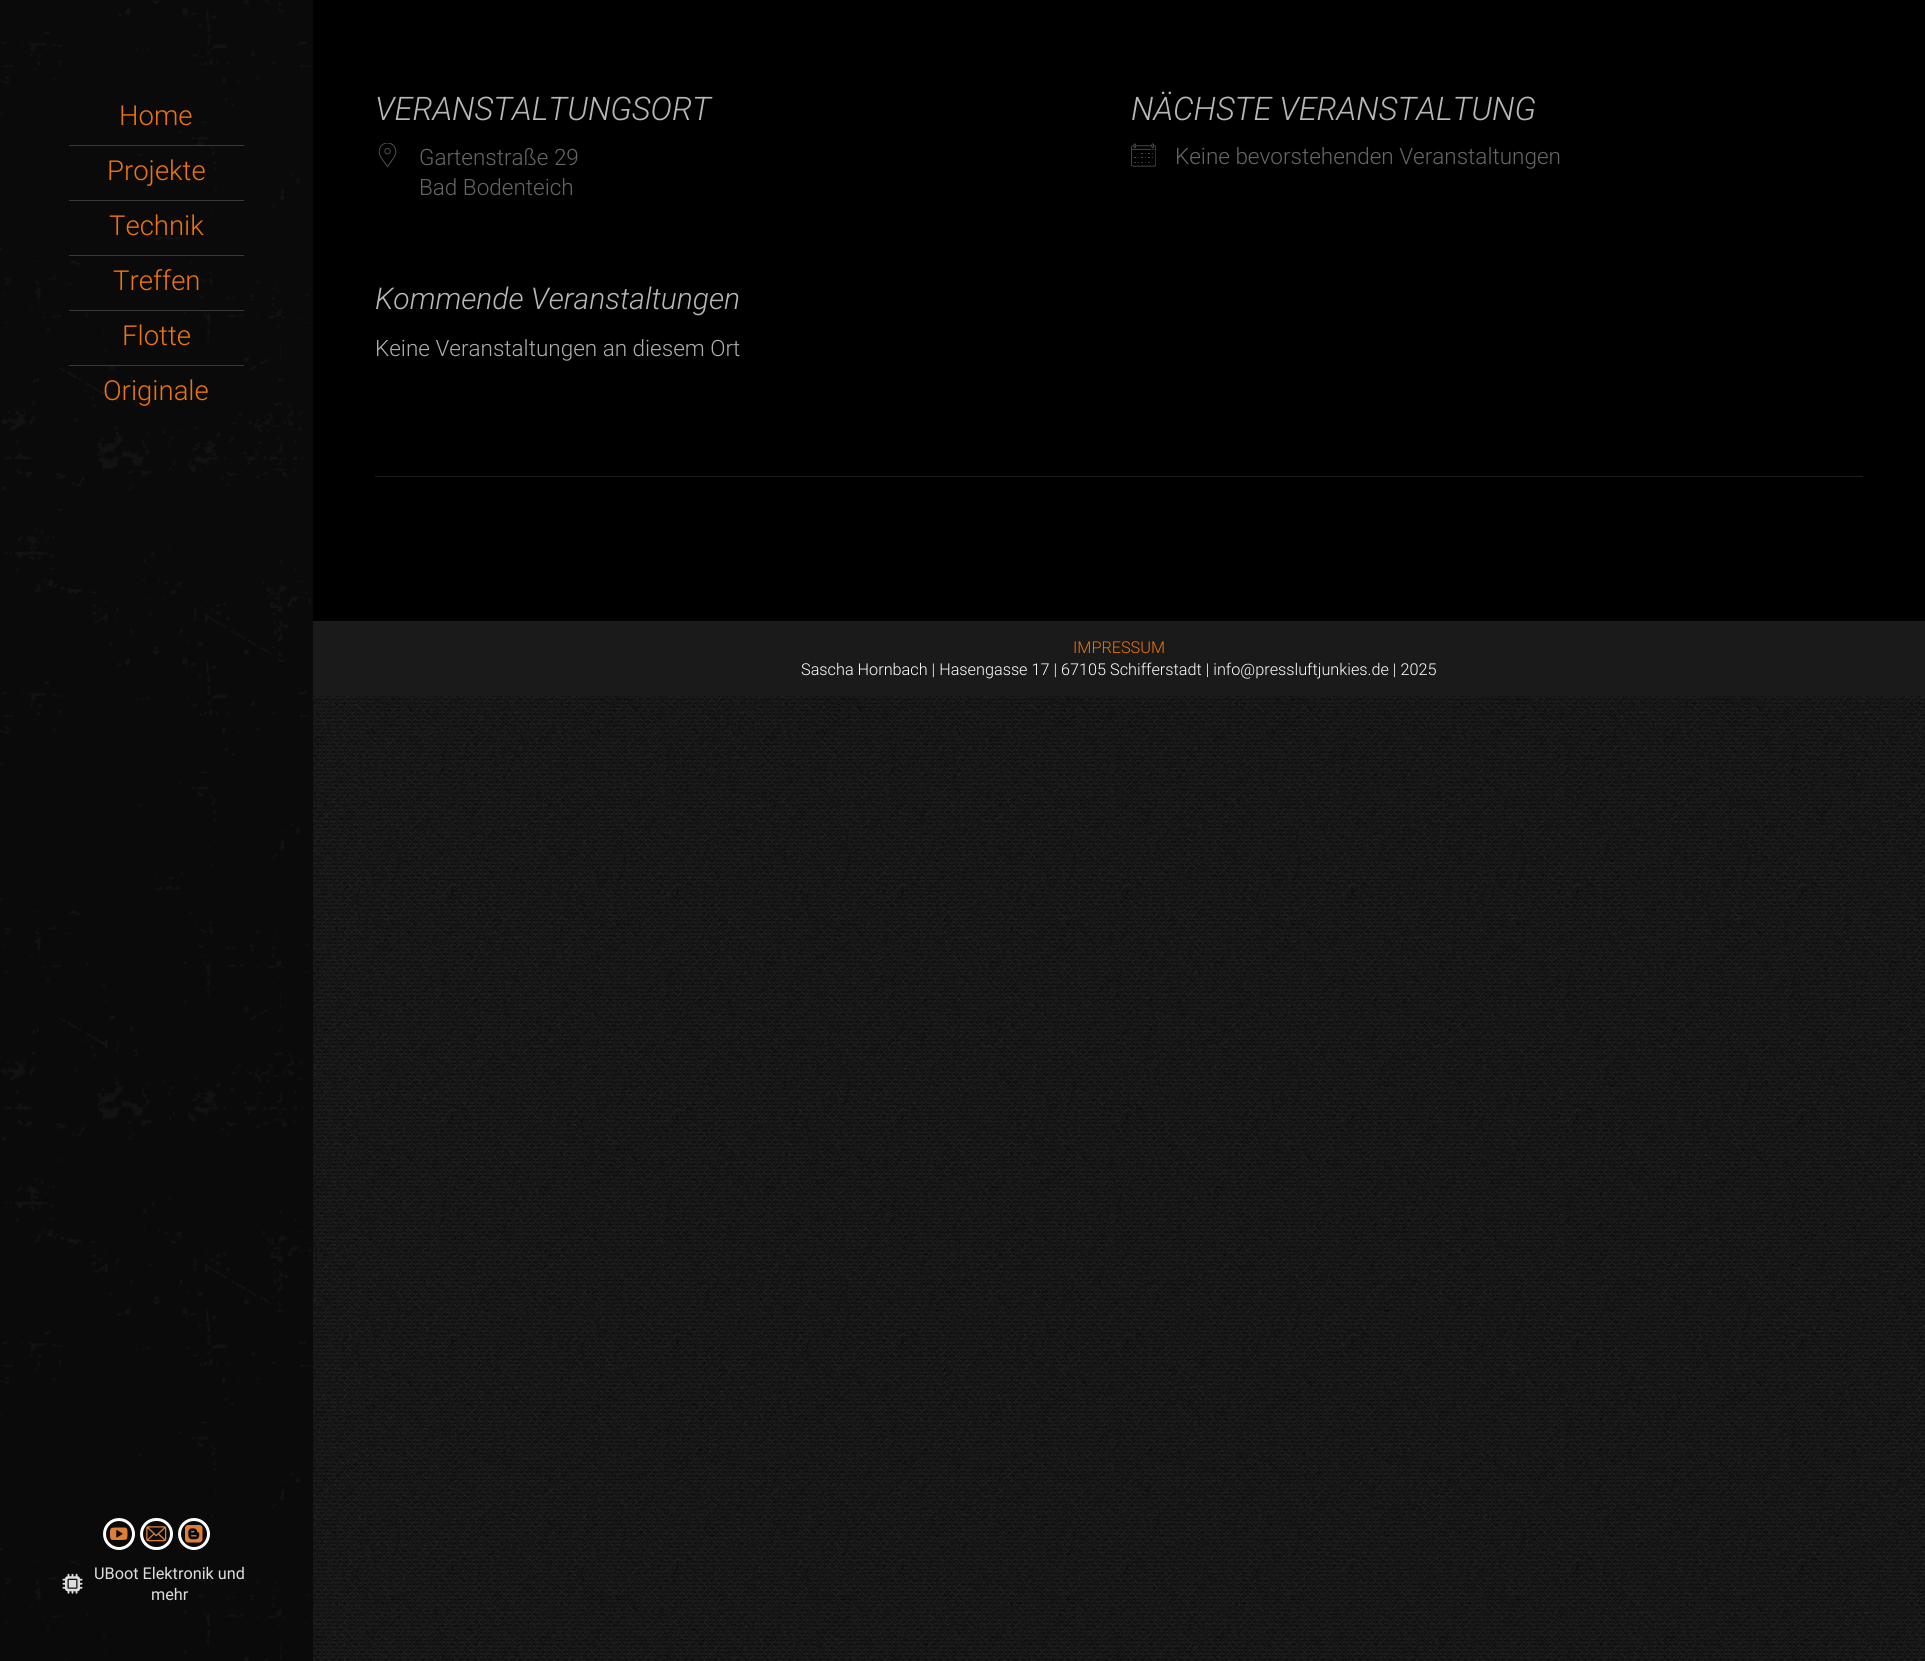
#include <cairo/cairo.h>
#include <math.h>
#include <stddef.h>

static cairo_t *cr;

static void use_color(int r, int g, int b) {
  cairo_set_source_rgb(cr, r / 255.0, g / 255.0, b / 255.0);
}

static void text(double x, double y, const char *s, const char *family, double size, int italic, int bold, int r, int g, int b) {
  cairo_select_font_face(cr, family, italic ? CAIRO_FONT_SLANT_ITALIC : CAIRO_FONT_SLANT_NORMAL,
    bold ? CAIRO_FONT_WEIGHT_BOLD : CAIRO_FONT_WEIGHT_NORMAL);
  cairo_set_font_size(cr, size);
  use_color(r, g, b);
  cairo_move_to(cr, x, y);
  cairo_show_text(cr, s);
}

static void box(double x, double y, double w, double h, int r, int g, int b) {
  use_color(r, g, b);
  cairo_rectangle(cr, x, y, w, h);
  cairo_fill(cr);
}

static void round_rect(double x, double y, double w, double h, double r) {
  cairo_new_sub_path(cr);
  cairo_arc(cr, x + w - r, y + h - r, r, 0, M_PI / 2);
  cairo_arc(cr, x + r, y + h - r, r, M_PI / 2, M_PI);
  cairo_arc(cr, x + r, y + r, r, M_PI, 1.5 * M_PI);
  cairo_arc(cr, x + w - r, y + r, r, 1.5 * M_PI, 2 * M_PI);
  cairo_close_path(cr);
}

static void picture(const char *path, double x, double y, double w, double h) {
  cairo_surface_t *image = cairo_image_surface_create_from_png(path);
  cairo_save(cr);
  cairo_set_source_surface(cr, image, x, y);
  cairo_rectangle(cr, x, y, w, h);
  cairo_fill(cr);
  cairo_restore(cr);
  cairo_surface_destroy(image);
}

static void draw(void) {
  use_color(255, 255, 255);
  cairo_paint(cr);
  picture("img_01.png", 313, 696, 1612, 965);
  box(313, 0, 1612, 621, 0, 0, 0);
  box(0, 0, 313, 1661, 10, 10, 10);
  picture("img_02.png", 0, 0, 311, 1661);
  box(69, 145, 175, 1, 56, 56, 56);
  box(69, 200, 175, 1, 56, 56, 56);
  box(69, 255, 175, 1, 56, 56, 56);
  box(69, 310, 175, 1, 56, 56, 56);
  box(69, 365, 175, 1, 56, 56, 56);
  cairo_arc(cr, 119, 1534, 14.5, 0, 2 * M_PI);
  use_color(255, 255, 255);
  cairo_set_line_width(cr, 3);
  cairo_stroke(cr);
  picture("img_03.png", 110, 1527, 18, 13);
  round_rect(141.5, 1519.5, 30, 29, 14.5);
  cairo_stroke(cr);
  picture("img_04.png", 146, 1526, 21, 16);
  cairo_arc(cr, 194, 1534, 14.5, 0, 2 * M_PI);
  cairo_stroke(cr);
  picture("img_05.png", 185, 1525, 18, 18);
  picture("img_06.png", 62, 1573, 21, 21);
  picture("img_07.png", 378, 143, 19, 25);
  picture("img_08.png", 1131, 143, 25, 24);
  box(375, 476, 1488, 1, 26, 28, 32);
  box(313, 621, 1612, 75, 26, 26, 26);
  text(119, 125, "Home", "Roboto Light", 27.5, 0, 0, 239, 116, 9);
  text(107, 180, "Projekte", "Roboto Light", 27.5, 0, 0, 239, 116, 9);
  text(109, 235, "Technik", "Roboto Light", 27.5, 0, 0, 239, 116, 9);
  text(113, 290, "Treffen", "Roboto Light", 27.5, 0, 0, 239, 116, 9);
  text(122, 345, "Flotte", "Roboto Light", 27.5, 0, 0, 239, 116, 9);
  text(103, 400, "Originale", "Roboto Light", 27.5, 0, 0, 239, 116, 9);
  text(94, 1579, "UBoot Elektronik und", "Roboto", 16.25, 0, 0, 221, 221, 221);
  text(151, 1600, "mehr", "Roboto", 16.25, 0, 0, 221, 221, 221);
  text(375, 120, "VERANSTALTUNGSORT", "Roboto Light", 32.5, 1, 0, 183, 183, 183);
  text(419, 165, "Gartenstraße 29", "Roboto Light", 22.5, 0, 0, 102, 102, 102);
  text(419, 195, "Bad Bodenteich", "Roboto Light", 22.5, 0, 0, 102, 102, 102);
  text(1131, 120, "NÄCHSTE VERANSTALTUNG", "Roboto Light", 32.5, 1, 0, 183, 183, 183);
  text(1175, 164, "Keine bevorstehenden Veranstaltungen", "Roboto Light", 22.5, 0, 0, 102, 102, 102);
  text(375, 309, "Kommende Veranstaltungen", "Roboto Light", 30, 1, 0, 183, 183, 183);
  text(375, 356, "Keine Veranstaltungen an diesem Ort", "Roboto Light", 22.5, 0, 0, 173, 173, 173);
  text(1073, 653, "IMPRESSUM", "Roboto Light", 16.25, 0, 0, 239, 116, 9);
  text(801, 675, "Sascha Hornbach | Hasengasse 17 | 67105 Schifferstadt | info@pressluftjunkies.de | 2025", "Roboto Light", 16.25, 0, 0, 255, 255, 255);
}

int main(void) {
  cairo_surface_t *surface = cairo_image_surface_create(CAIRO_FORMAT_RGB24, 1925, 1661);
  cr = cairo_create(surface);
  cairo_font_options_t *options = cairo_font_options_create();
  cairo_font_options_set_hint_metrics(options, CAIRO_HINT_METRICS_OFF);
  cairo_font_options_set_hint_style(options, CAIRO_HINT_STYLE_NONE);
  cairo_set_font_options(cr, options);
  cairo_set_miter_limit(cr, 4);
  draw();
  cairo_surface_write_to_png(surface, "out.png");
  cairo_font_options_destroy(options);
  cairo_destroy(cr);
  cairo_surface_destroy(surface);
  return 0;
}
